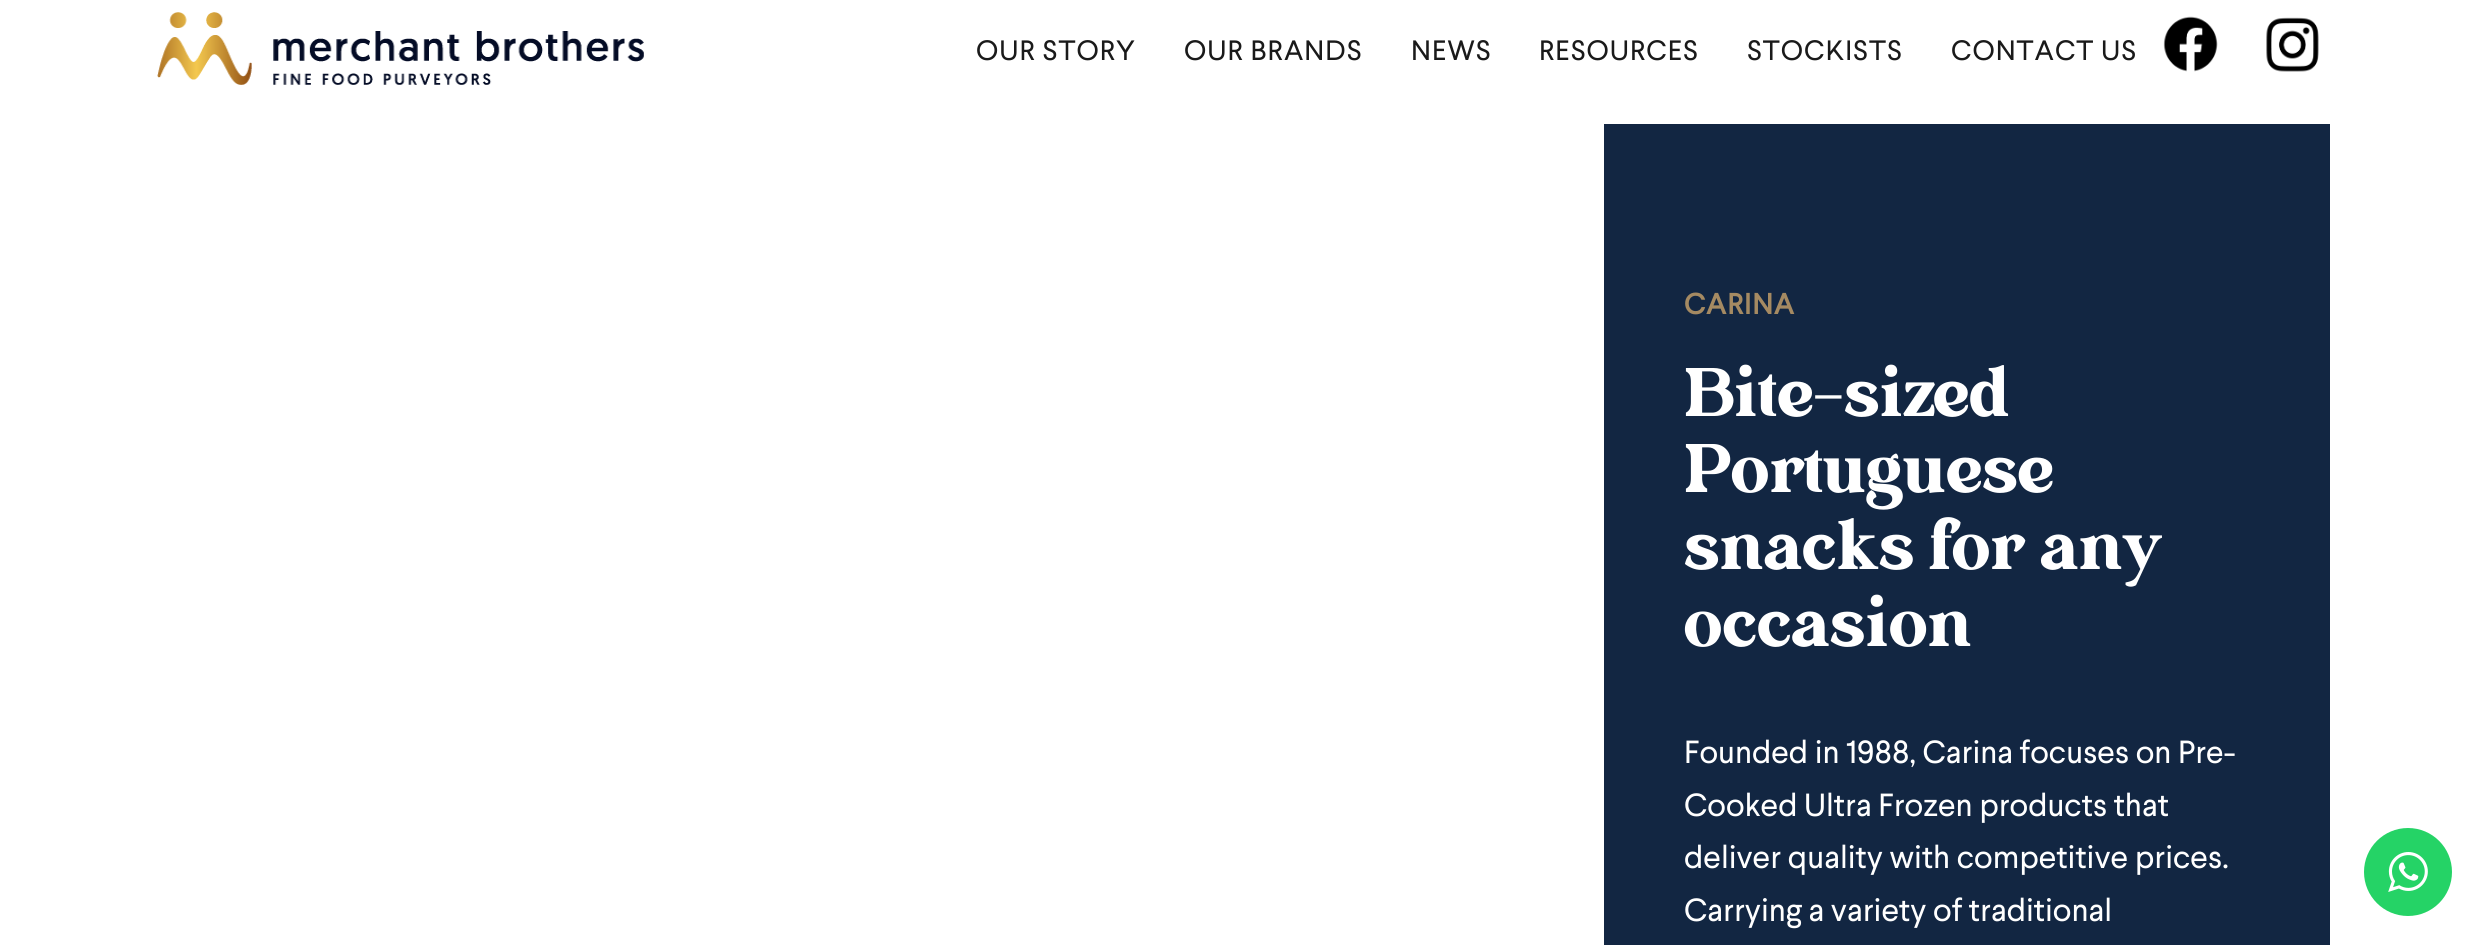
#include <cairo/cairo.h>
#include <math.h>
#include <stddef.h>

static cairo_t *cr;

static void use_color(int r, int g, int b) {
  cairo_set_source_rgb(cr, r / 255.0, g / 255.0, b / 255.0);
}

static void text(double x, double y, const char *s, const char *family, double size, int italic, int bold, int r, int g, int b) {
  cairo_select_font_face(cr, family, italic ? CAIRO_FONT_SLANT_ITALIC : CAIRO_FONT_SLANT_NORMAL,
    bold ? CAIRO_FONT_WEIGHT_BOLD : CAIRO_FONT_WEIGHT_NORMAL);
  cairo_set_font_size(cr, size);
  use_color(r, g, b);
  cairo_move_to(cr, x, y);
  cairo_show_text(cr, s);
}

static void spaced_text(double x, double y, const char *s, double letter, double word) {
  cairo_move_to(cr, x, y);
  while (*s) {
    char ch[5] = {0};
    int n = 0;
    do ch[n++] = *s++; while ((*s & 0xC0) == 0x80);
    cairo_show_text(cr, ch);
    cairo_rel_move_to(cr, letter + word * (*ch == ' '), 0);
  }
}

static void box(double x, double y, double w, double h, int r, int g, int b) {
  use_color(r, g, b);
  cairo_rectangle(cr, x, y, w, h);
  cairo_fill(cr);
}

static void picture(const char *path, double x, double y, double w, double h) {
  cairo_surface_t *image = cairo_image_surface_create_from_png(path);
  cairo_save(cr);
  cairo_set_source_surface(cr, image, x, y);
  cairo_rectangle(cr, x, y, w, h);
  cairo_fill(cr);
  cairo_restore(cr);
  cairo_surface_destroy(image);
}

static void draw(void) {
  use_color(255, 255, 255);
  cairo_paint(cr);
  picture("img_01.png", 157, 12, 487, 73);
  picture("img_02.png", 2163, 16, 55, 56);
  picture("img_03.png", 2266, 17, 53, 55);
  box(1604, 124, 726, 821, 18, 38, 66);
  use_color(37, 211, 102);
  cairo_arc(cr, 2408, 872, 44, 0, 2 * M_PI);
  cairo_fill(cr);
  picture("img_04.png", 2388, 852, 40, 40);
  cairo_select_font_face(cr, "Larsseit", CAIRO_FONT_SLANT_NORMAL, CAIRO_FONT_WEIGHT_NORMAL);
  cairo_set_font_size(cr, 28);
  use_color(26, 26, 26);
  spaced_text(976, 60, "OUR STORY", 1, 0);
  spaced_text(1184, 60, "OUR BRANDS", 1, 0);
  spaced_text(1411, 60, "NEWS", 1, 0);
  spaced_text(1539, 60, "RESOURCES", 1, 0);
  spaced_text(1747, 60, "STOCKISTS", 1, 0);
  spaced_text(1951, 60, "CONTACT US", 1, 0);
  cairo_select_font_face(cr, "Larsseit", CAIRO_FONT_SLANT_NORMAL, CAIRO_FONT_WEIGHT_BOLD);
  cairo_set_font_size(cr, 29);
  use_color(165, 138, 98);
  spaced_text(1684, 314, "CARINA", 1, 0);
  cairo_select_font_face(cr, "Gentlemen", CAIRO_FONT_SLANT_NORMAL, CAIRO_FONT_WEIGHT_NORMAL);
  cairo_set_font_size(cr, 96);
  use_color(255, 255, 255);
  spaced_text(1684, 416, "Bite-sized", 0.6, 0);
  spaced_text(1684, 492, "Portuguese", 0.6, 0);
  spaced_text(1684, 569, "snacks for any", 0.6, 0);
  spaced_text(1684, 646, "occasion", 0.6, 0);
  text(1684, 763, "Founded in 1988, Carina focuses on Pre-", "Larsseit", 32, 0, 0, 255, 255, 255);
  text(1684, 816, "Cooked Ultra Frozen products that", "Larsseit", 32, 0, 0, 255, 255, 255);
  text(1684, 868, "deliver quality with competitive prices.", "Larsseit", 32, 0, 0, 255, 255, 255);
  text(1684, 921, "Carrying a variety of traditional", "Larsseit", 32, 0, 0, 255, 255, 255);
}

int main(void) {
  cairo_surface_t *surface = cairo_image_surface_create(CAIRO_FORMAT_RGB24, 2481, 945);
  cr = cairo_create(surface);
  cairo_font_options_t *options = cairo_font_options_create();
  cairo_font_options_set_hint_metrics(options, CAIRO_HINT_METRICS_OFF);
  cairo_font_options_set_hint_style(options, CAIRO_HINT_STYLE_NONE);
  cairo_set_font_options(cr, options);
  cairo_set_miter_limit(cr, 4);
  draw();
  cairo_surface_write_to_png(surface, "out.png");
  cairo_font_options_destroy(options);
  cairo_destroy(cr);
  cairo_surface_destroy(surface);
  return 0;
}
